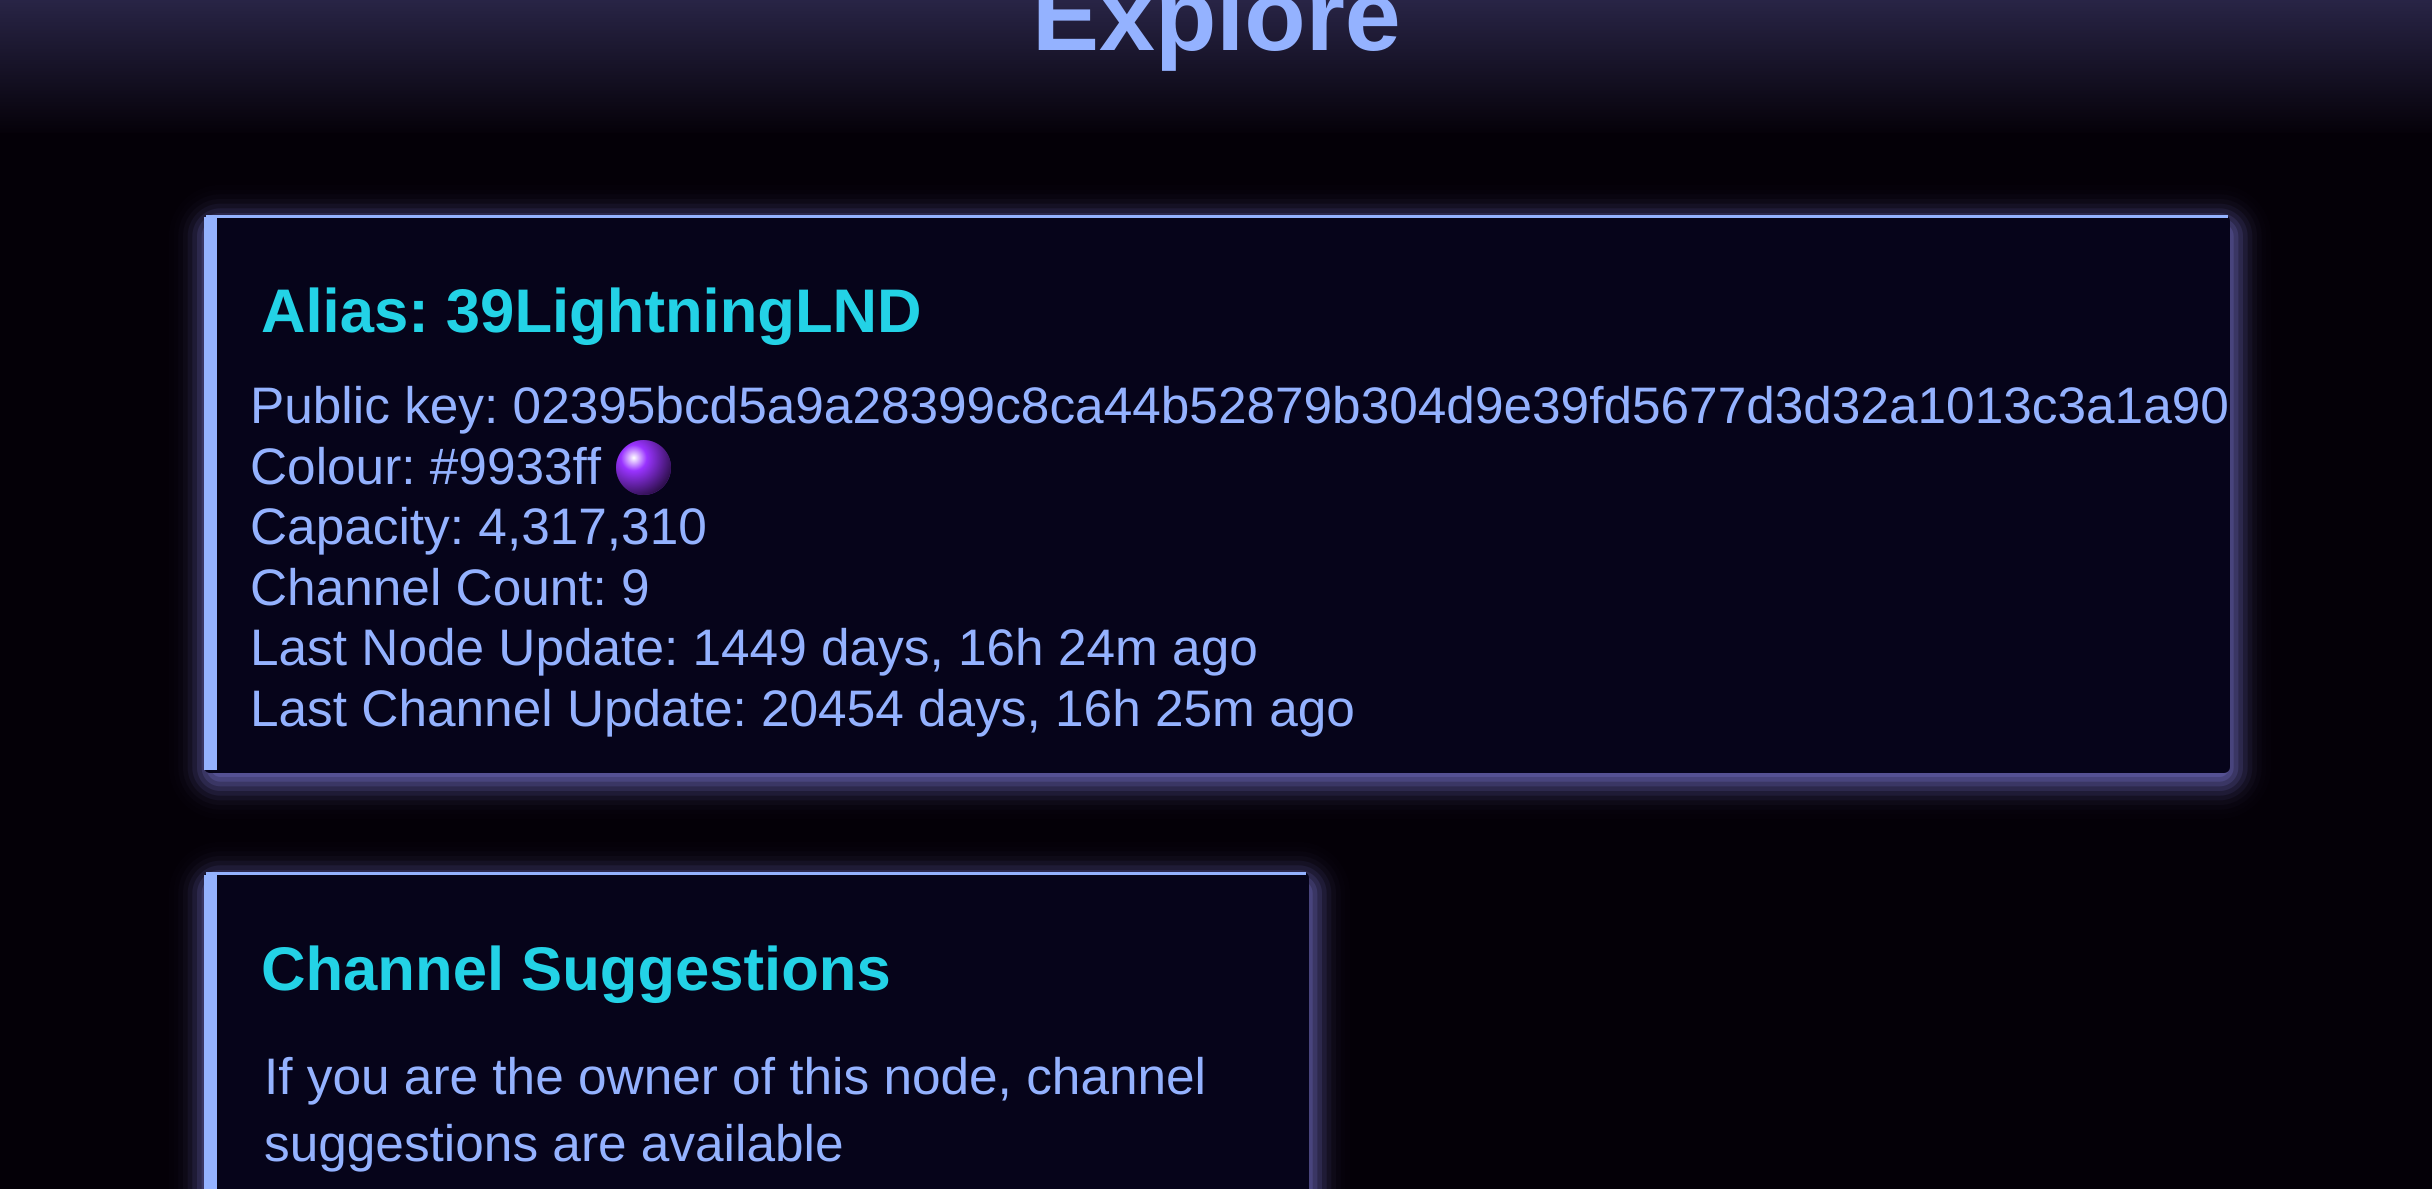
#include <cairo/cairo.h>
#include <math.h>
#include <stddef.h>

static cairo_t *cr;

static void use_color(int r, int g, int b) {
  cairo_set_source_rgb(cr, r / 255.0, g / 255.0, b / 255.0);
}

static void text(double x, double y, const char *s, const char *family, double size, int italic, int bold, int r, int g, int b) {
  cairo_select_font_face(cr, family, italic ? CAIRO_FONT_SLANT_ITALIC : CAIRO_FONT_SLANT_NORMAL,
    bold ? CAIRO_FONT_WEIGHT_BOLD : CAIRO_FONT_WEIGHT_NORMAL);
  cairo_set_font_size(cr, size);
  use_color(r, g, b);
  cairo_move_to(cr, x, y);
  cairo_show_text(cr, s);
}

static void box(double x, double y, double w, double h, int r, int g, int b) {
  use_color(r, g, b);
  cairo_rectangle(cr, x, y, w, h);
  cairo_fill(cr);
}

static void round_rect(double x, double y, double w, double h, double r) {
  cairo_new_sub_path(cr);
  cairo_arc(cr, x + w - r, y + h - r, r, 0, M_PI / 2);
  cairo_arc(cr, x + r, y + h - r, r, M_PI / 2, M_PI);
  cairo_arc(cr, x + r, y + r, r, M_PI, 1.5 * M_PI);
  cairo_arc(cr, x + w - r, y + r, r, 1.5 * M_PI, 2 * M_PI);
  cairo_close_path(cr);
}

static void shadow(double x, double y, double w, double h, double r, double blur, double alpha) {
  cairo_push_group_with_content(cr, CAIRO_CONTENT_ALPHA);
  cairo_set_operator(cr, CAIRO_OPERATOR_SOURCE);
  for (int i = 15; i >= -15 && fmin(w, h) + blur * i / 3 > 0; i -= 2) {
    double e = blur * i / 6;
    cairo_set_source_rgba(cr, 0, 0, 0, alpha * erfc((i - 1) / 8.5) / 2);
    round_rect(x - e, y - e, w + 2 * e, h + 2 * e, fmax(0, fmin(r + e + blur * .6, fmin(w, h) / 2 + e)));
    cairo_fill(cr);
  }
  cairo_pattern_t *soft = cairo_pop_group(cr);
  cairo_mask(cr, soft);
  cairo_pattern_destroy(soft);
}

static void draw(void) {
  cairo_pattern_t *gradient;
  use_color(4, 0, 7);
  cairo_paint(cr);
  gradient = cairo_pattern_create_linear(1217, -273, 1217, 138);
  cairo_pattern_add_color_stop_rgba(gradient, 0, 0.439, 0.424, 0.761, 1);
  cairo_pattern_add_color_stop_rgba(gradient, 1, 0.016, 0, 0.027, 1);
  cairo_set_source(cr, gradient);
  cairo_pattern_destroy(gradient);
  cairo_rectangle(cr, 0, 0, 2432, 133);
  cairo_fill(cr);
  use_color(112, 108, 194);
  shadow(204, 220, 2032, 564, 8, 14, 1);
  use_color(6, 4, 26);
  round_rect(204, 215, 2026, 558, 6);
  cairo_fill(cr);
  box(206, 215, 2022, 3, 148, 178, 255);
  box(204, 217, 13, 553, 148, 178, 255);
  use_color(153, 51, 255);
  cairo_arc(cr, 643.5, 467.5, 27.5, 0, 2 * M_PI);
  cairo_fill(cr);
  gradient = cairo_pattern_create_radial(634, 458, 0, 634, 458, 52);
  cairo_pattern_add_color_stop_rgba(gradient, 0, 1, 1, 1, 1);
  cairo_pattern_add_color_stop_rgba(gradient, 0.25, 1, 1, 1, 0);
  cairo_pattern_add_color_stop_rgba(gradient, 0.25, 0, 0, 0, 0);
  cairo_pattern_add_color_stop_rgba(gradient, 1, 0, 0, 0, 1);
  cairo_set_source(cr, gradient);
  cairo_pattern_destroy(gradient);
  cairo_arc(cr, 643.5, 467.5, 27.5, 0, 2 * M_PI);
  cairo_fill(cr);
  use_color(112, 108, 194);
  shadow(204, 877, 1111, 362, 8, 14, 1);
  use_color(6, 4, 26);
  round_rect(204, 872, 1105, 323, 6);
  cairo_fill(cr);
  box(206, 872, 1100, 3, 148, 178, 255);
  box(204, 875, 13, 314, 148, 178, 255);
  text(1032, 50, "Explore", "Liberation Sans", 100.5, 0, 1, 148, 178, 255);
  text(261, 332, "Alias: 39LightningLND", "Liberation Sans", 61.6, 0, 1, 35, 210, 230);
  text(250, 423, "Public key: 02395bcd5a9a28399c8ca44b52879b304d9e39fd5677d3d32a1013c3a1a90", "Liberation Sans", 51.35, 0, 0, 148, 178, 255);
  text(250, 484, "Colour: #9933ff", "Liberation Sans", 51.35, 0, 0, 148, 178, 255);
  text(250, 544, "Capacity: 4,317,310", "Liberation Sans", 51.35, 0, 0, 148, 178, 255);
  text(250, 605, "Channel Count: 9", "Liberation Sans", 51.35, 0, 0, 148, 178, 255);
  text(250, 665, "Last Node Update: 1449 days, 16h 24m ago", "Liberation Sans", 51.35, 0, 0, 148, 178, 255);
  text(250, 726, "Last Channel Update: 20454 days, 16h 25m ago", "Liberation Sans", 51.35, 0, 0, 148, 178, 255);
  text(261, 990, "Channel Suggestions", "Liberation Sans", 61.6, 0, 1, 35, 210, 230);
  text(264, 1094, "If you are the owner of this node, channel", "Liberation Sans", 51.35, 0, 0, 148, 178, 255);
  text(264, 1161, "suggestions are available", "Liberation Sans", 51.35, 0, 0, 148, 178, 255);
}

int main(void) {
  cairo_surface_t *surface = cairo_image_surface_create(CAIRO_FORMAT_RGB24, 2432, 1189);
  cr = cairo_create(surface);
  cairo_font_options_t *options = cairo_font_options_create();
  cairo_font_options_set_hint_metrics(options, CAIRO_HINT_METRICS_OFF);
  cairo_font_options_set_hint_style(options, CAIRO_HINT_STYLE_NONE);
  cairo_set_font_options(cr, options);
  cairo_set_miter_limit(cr, 4);
  draw();
  cairo_surface_write_to_png(surface, "out.png");
  cairo_font_options_destroy(options);
  cairo_destroy(cr);
  cairo_surface_destroy(surface);
  return 0;
}
